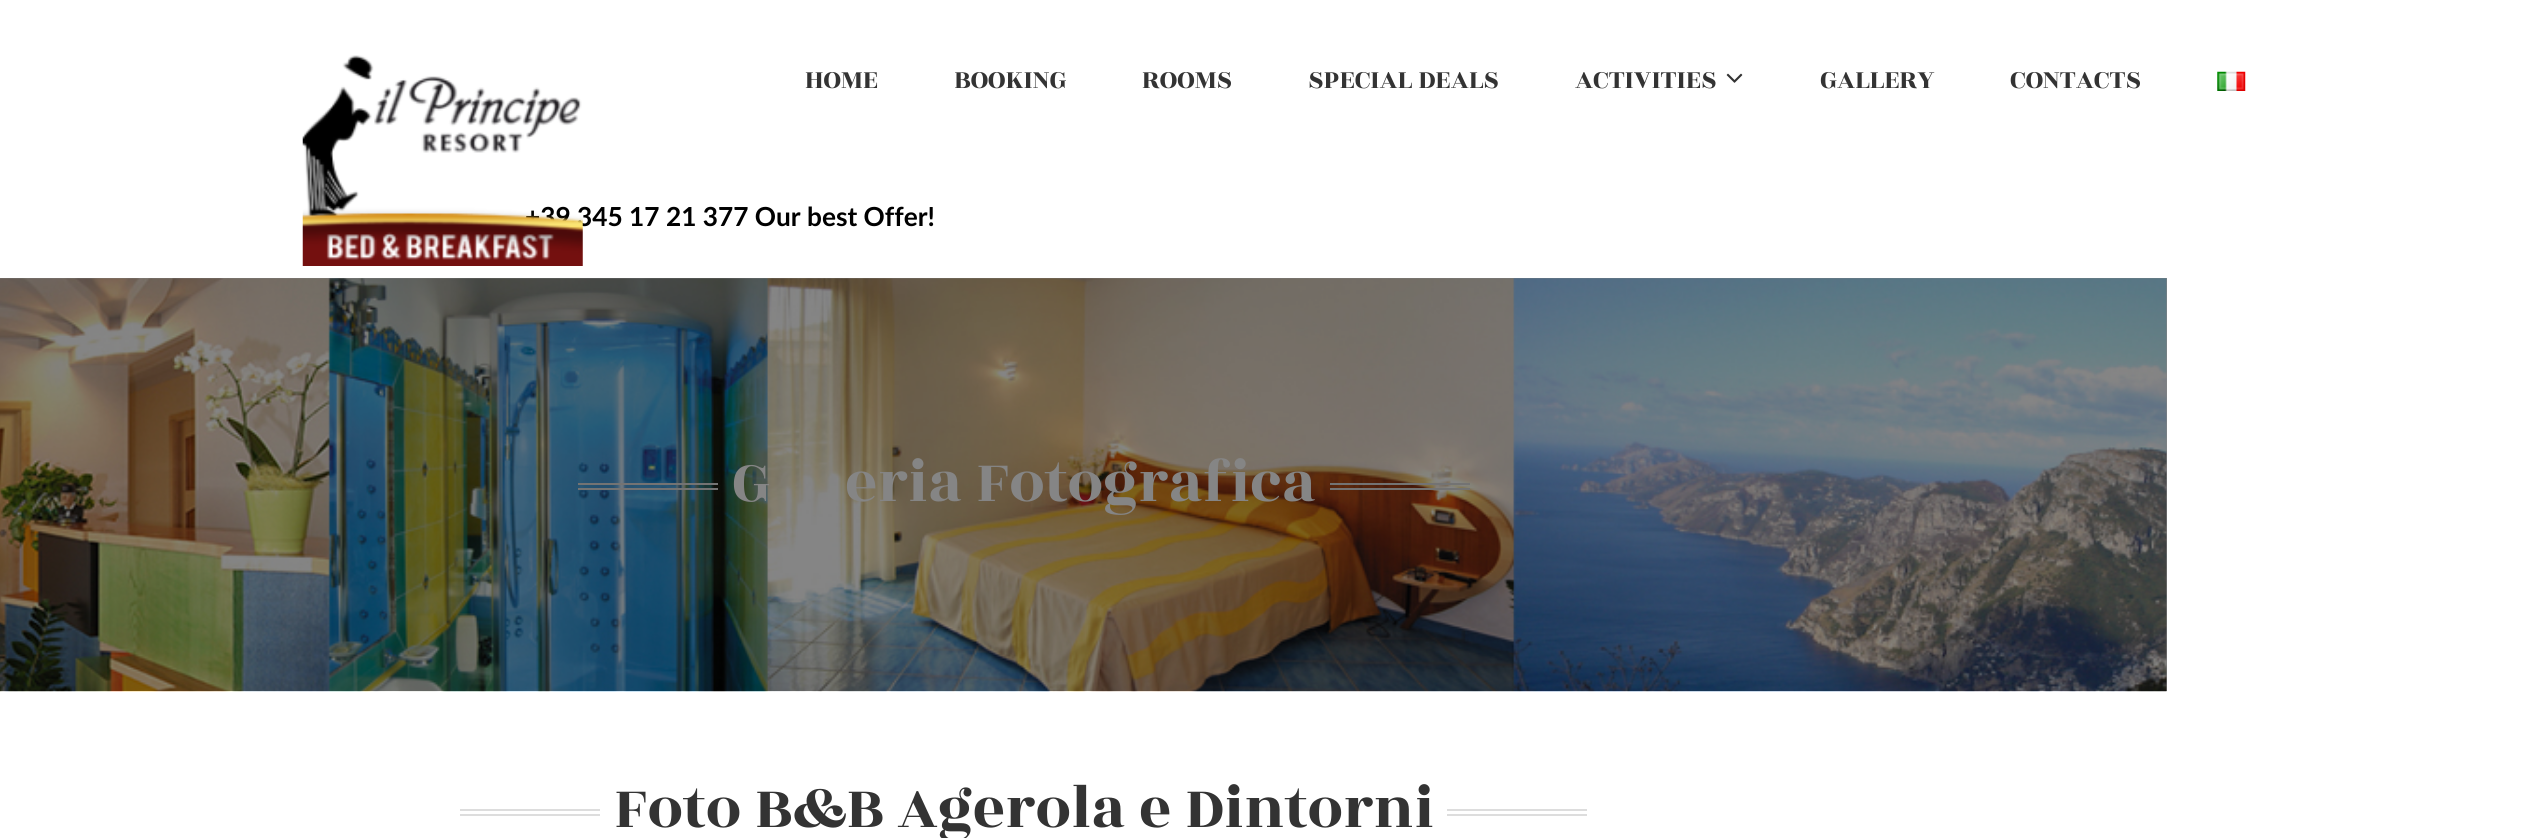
#include <cairo/cairo.h>
#include <math.h>
#include <stddef.h>

static cairo_t *cr;

static void use_color(int r, int g, int b) {
  cairo_set_source_rgb(cr, r / 255.0, g / 255.0, b / 255.0);
}

static void text(double x, double y, const char *s, const char *family, double size, int italic, int bold, int r, int g, int b) {
  cairo_select_font_face(cr, family, italic ? CAIRO_FONT_SLANT_ITALIC : CAIRO_FONT_SLANT_NORMAL,
    bold ? CAIRO_FONT_WEIGHT_BOLD : CAIRO_FONT_WEIGHT_NORMAL);
  cairo_set_font_size(cr, size);
  use_color(r, g, b);
  cairo_move_to(cr, x, y);
  cairo_show_text(cr, s);
}

static void box(double x, double y, double w, double h, int r, int g, int b) {
  use_color(r, g, b);
  cairo_rectangle(cr, x, y, w, h);
  cairo_fill(cr);
}

static void picture(const char *path, double x, double y, double w, double h) {
  cairo_surface_t *image = cairo_image_surface_create_from_png(path);
  cairo_save(cr);
  cairo_set_source_surface(cr, image, x, y);
  cairo_rectangle(cr, x, y, w, h);
  cairo_fill(cr);
  cairo_restore(cr);
  cairo_surface_destroy(image);
}

static void draw(void) {
  use_color(255, 255, 255);
  cairo_paint(cr);
  box(0, 278, 2167, 413, 133, 133, 133);
  picture("img_02.png", 1726, 73, 17, 10);
  picture("img_03.png", 2217, 71, 29, 20);
  picture("img_04.png", 0, 278, 2167, 414);
  box(578, 483, 140, 2, 115, 115, 115);
  box(578, 488, 140, 2, 115, 115, 115);
  box(1330, 483, 140, 2, 115, 115, 115);
  box(1330, 488, 140, 2, 115, 115, 115);
  box(460, 809, 140, 2, 221, 221, 221);
  box(460, 814, 140, 2, 221, 221, 221);
  box(1447, 809, 140, 2, 221, 221, 221);
  box(1447, 814, 140, 2, 221, 221, 221);
  text(805, 88, "HOME", "Rozha One", 28, 0, 0, 51, 51, 51);
  text(954, 88, "BOOKING", "Rozha One", 28, 0, 0, 51, 51, 51);
  text(1142, 88, "ROOMS", "Rozha One", 28, 0, 0, 51, 51, 51);
  text(1308, 88, "SPECIAL DEALS", "Rozha One", 28, 0, 0, 51, 51, 51);
  text(1575, 88, "ACTIVITIES", "Rozha One", 28, 0, 0, 51, 51, 51);
  text(1820, 88, "GALLERY", "Rozha One", 28, 0, 0, 51, 51, 51);
  text(2010, 88, "CONTACTS", "Rozha One", 28, 0, 0, 51, 51, 51);
  text(525, 226, "+39 345 17 21 377 Our best Offer!", "Lato", 26.25, 0, 1, 0, 0, 0);
  picture("img_01.png", 302, 55, 281, 211);
  text(732, 501, "G", "Rozha One", 63, 0, 0, 133, 133, 133);
  text(845, 501, "eria Fotografica", "Rozha One", 63, 0, 0, 133, 133, 133);
  text(614, 827, "Foto B&B Agerola e Dintorni", "Rozha One", 63, 0, 0, 51, 51, 51);
}

int main(void) {
  cairo_surface_t *surface = cairo_image_surface_create(CAIRO_FORMAT_RGB24, 2548, 838);
  cr = cairo_create(surface);
  cairo_font_options_t *options = cairo_font_options_create();
  cairo_font_options_set_hint_metrics(options, CAIRO_HINT_METRICS_OFF);
  cairo_font_options_set_hint_style(options, CAIRO_HINT_STYLE_NONE);
  cairo_set_font_options(cr, options);
  cairo_set_miter_limit(cr, 4);
  draw();
  cairo_surface_write_to_png(surface, "out.png");
  cairo_font_options_destroy(options);
  cairo_destroy(cr);
  cairo_surface_destroy(surface);
  return 0;
}
